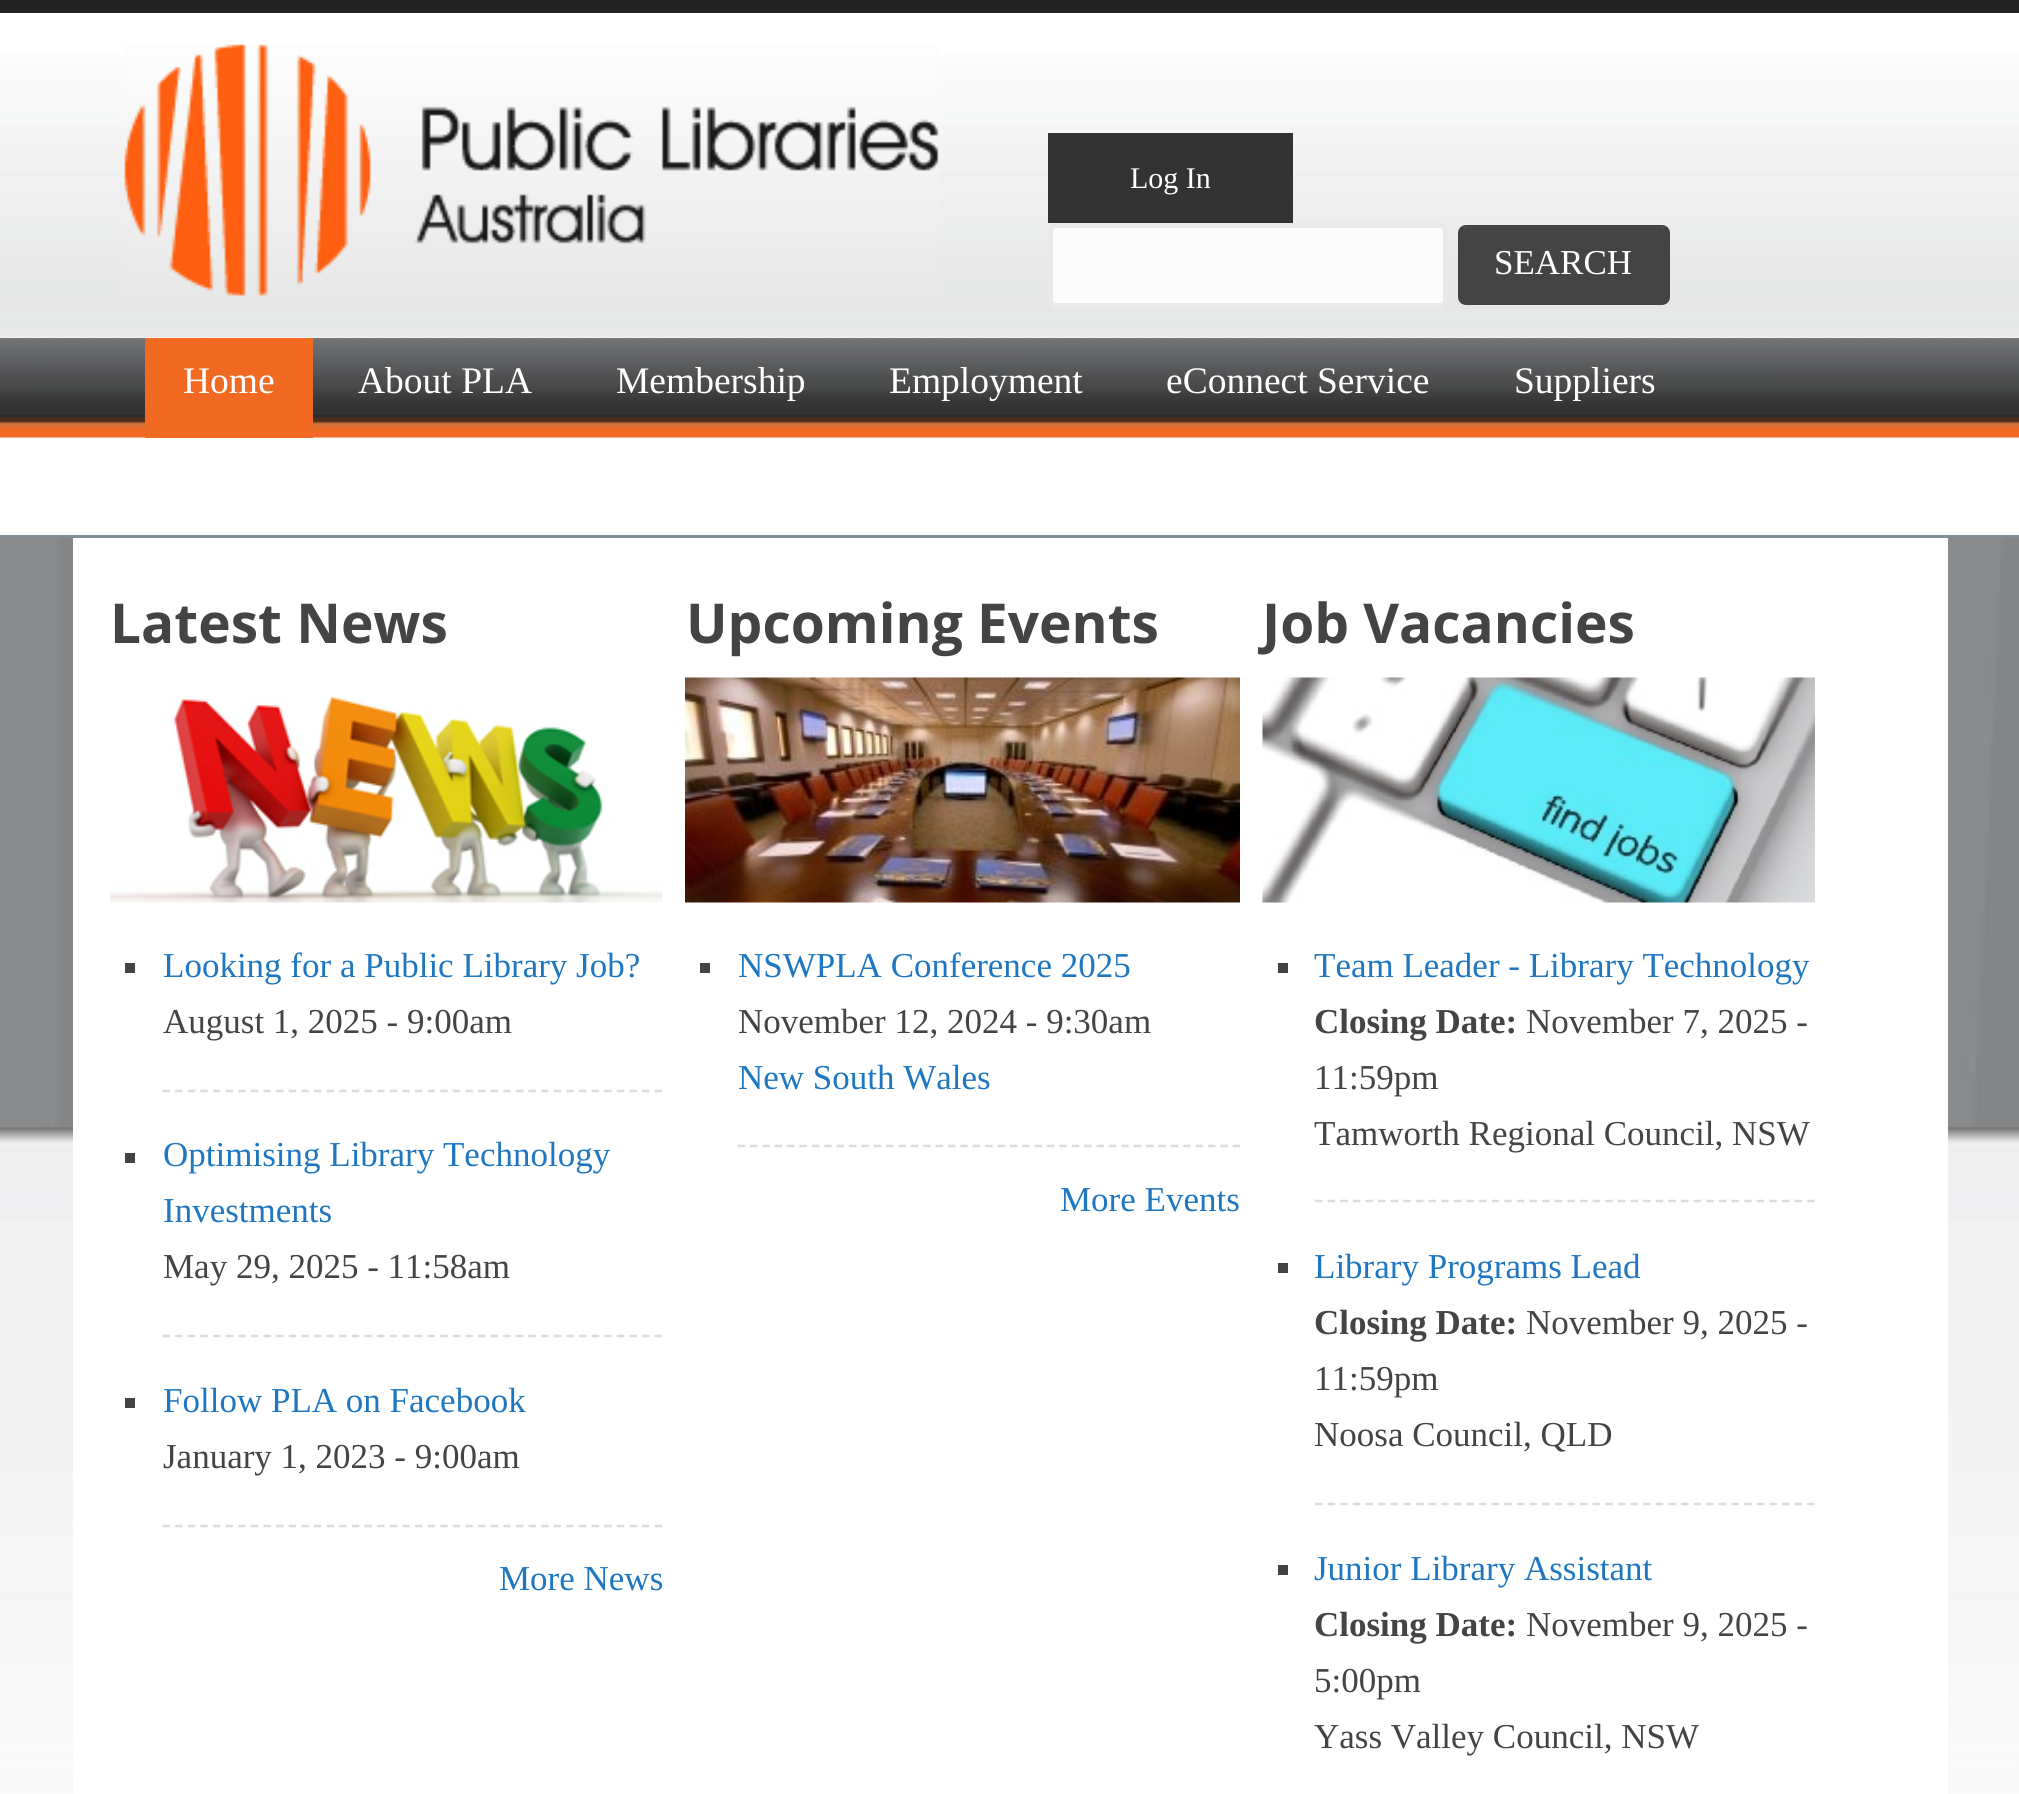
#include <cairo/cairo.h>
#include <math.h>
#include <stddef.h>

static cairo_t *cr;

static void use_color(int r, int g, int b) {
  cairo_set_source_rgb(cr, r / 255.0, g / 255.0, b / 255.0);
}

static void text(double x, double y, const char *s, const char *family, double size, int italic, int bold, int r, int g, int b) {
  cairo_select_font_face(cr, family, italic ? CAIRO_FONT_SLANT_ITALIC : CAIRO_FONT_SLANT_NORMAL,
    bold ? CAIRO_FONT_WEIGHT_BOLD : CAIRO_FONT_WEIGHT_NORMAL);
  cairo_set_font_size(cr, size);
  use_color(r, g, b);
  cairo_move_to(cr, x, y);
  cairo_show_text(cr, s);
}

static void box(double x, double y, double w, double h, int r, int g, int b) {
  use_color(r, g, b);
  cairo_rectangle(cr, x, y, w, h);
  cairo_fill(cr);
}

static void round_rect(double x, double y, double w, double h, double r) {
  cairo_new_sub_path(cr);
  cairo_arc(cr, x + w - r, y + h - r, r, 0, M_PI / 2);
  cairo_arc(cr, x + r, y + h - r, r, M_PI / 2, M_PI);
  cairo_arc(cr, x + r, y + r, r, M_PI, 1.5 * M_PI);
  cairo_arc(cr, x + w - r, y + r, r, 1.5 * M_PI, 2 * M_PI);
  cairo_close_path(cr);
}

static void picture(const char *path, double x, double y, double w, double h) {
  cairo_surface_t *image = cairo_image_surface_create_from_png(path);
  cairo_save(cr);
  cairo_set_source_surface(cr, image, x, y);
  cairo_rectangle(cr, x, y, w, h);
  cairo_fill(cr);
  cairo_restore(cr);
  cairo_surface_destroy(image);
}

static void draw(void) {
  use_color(255, 255, 255);
  cairo_paint(cr);
  picture("img_01.png", 0, 55, 2019, 283);
  box(0, 0, 2019, 13, 34, 34, 34);
  cairo_new_path(cr);
  cairo_move_to(cr, 0, 336);
  cairo_line_to(cr, 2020, 336);
  use_color(234, 234, 234);
  cairo_set_line_width(cr, 2.5);
  cairo_set_dash(cr, (double[]){7.5, 5}, 2, 0);
  cairo_stroke(cr);
  picture("img_02.png", 124, 44, 815, 252);
  box(1048, 133, 245, 90, 51, 51, 51);
  use_color(252, 252, 252);
  round_rect(1050.5, 225.5, 395, 80, 5.5);
  cairo_fill_preserve(cr);
  use_color(234, 234, 234);
  cairo_set_line_width(cr, 5);
  cairo_set_dash(cr, NULL, 0, 0);
  cairo_stroke(cr);
  use_color(68, 68, 68);
  round_rect(1458, 225, 212, 80, 8);
  cairo_fill(cr);
  picture("img_03.png", 0, 338, 2019, 100);
  box(145, 338, 168, 100, 242, 105, 34);
  picture("img_04.png", 0, 535, 2019, 1259);
  picture("img_05.png", 0, 537, 2019, 591);
  box(73, 538, 1875, 1256, 255, 255, 255);
  picture("img_06.png", 110, 696, 553, 207);
  cairo_new_path(cr);
  cairo_move_to(cr, 162.5, 1091);
  cairo_line_to(cr, 662.5, 1091);
  use_color(221, 221, 221);
  cairo_set_line_width(cr, 2.5);
  cairo_set_dash(cr, (double[]){7.5, 5.12}, 2, 0);
  cairo_stroke(cr);
  box(125, 963, 10, 10, 68, 68, 68);
  cairo_new_path(cr);
  cairo_move_to(cr, 162.5, 1336);
  cairo_line_to(cr, 662.5, 1336);
  use_color(221, 221, 221);
  cairo_stroke(cr);
  box(125, 1153, 10, 10, 68, 68, 68);
  cairo_new_path(cr);
  cairo_move_to(cr, 162.5, 1526);
  cairo_line_to(cr, 662.5, 1526);
  use_color(221, 221, 221);
  cairo_stroke(cr);
  box(125, 1398, 10, 10, 68, 68, 68);
  picture("img_07.png", 685, 677, 555, 226);
  cairo_new_path(cr);
  cairo_move_to(cr, 737.5, 1146);
  cairo_line_to(cr, 1240, 1146);
  use_color(221, 221, 221);
  cairo_set_dash(cr, (double[]){7.5, 4.88}, 2, 0);
  cairo_stroke(cr);
  box(700, 963, 10, 10, 68, 68, 68);
  picture("img_08.png", 1262, 677, 553, 226);
  cairo_new_path(cr);
  cairo_move_to(cr, 1315, 1201);
  cairo_line_to(cr, 1815, 1201);
  use_color(221, 221, 221);
  cairo_set_dash(cr, (double[]){7.5, 5.12}, 2, 0);
  cairo_stroke(cr);
  box(1278, 963, 10, 10, 68, 68, 68);
  cairo_new_path(cr);
  cairo_move_to(cr, 1315, 1504);
  cairo_line_to(cr, 1815, 1504);
  use_color(221, 221, 221);
  cairo_stroke(cr);
  box(1278, 1263, 10, 10, 68, 68, 68);
  box(1278, 1565, 10, 10, 68, 68, 68);
  text(1130, 188, "Log In", "Liberation Serif", 30, 0, 0, 255, 255, 255);
  text(1494, 274, "SEARCH", "Liberation Serif", 35, 0, 0, 255, 255, 255);
  text(183, 393, "Home", "Liberation Serif", 37.5, 0, 0, 255, 255, 255);
  text(358, 393, "About PLA", "Liberation Serif", 37.5, 0, 0, 255, 255, 255);
  text(616, 393, "Membership", "Liberation Serif", 37.5, 0, 0, 255, 255, 255);
  text(889, 393, "Employment", "Liberation Serif", 37.5, 0, 0, 255, 255, 255);
  text(1166, 393, "eConnect Service", "Liberation Serif", 37.5, 0, 0, 255, 255, 255);
  text(1514, 393, "Suppliers", "Liberation Serif", 37.5, 0, 0, 255, 255, 255);
  text(110, 643, "Latest News", "Open Sans", 55, 0, 1, 68, 68, 68);
  text(163, 977, "Looking for a Public Library Job?", "Liberation Serif", 35, 0, 0, 31, 119, 193);
  text(163, 1033, "August 1, 2025 - 9:00am", "Liberation Serif", 35, 0, 0, 68, 68, 68);
  text(163, 1166, "Optimising Library Technology", "Liberation Serif", 35, 0, 0, 31, 119, 193);
  text(163, 1222, "Investments", "Liberation Serif", 35, 0, 0, 31, 119, 193);
  text(163, 1278, "May 29, 2025 - 11:58am", "Liberation Serif", 35, 0, 0, 68, 68, 68);
  text(163, 1412, "Follow PLA on Facebook", "Liberation Serif", 35, 0, 0, 31, 119, 193);
  text(163, 1468, "January 1, 2023 - 9:00am", "Liberation Serif", 35, 0, 0, 68, 68, 68);
  text(499, 1590, "More News", "Liberation Serif", 35, 0, 0, 31, 119, 193);
  text(686, 643, "Upcoming Events", "Open Sans", 55, 0, 1, 68, 68, 68);
  text(738, 977, "NSWPLA Conference 2025", "Liberation Serif", 35, 0, 0, 31, 119, 193);
  text(738, 1033, "November 12, 2024 - 9:30am", "Liberation Serif", 35, 0, 0, 68, 68, 68);
  text(738, 1089, "New South Wales", "Liberation Serif", 35, 0, 0, 31, 119, 193);
  text(1060, 1211, "More Events", "Liberation Serif", 35, 0, 0, 31, 119, 193);
  text(1262, 643, "Job Vacancies", "Open Sans", 55, 0, 1, 68, 68, 68);
  text(1314, 977, "Team Leader - Library Technology", "Liberation Serif", 35, 0, 0, 31, 119, 193);
  text(1314, 1033, "Closing Date:", "Liberation Serif", 35, 0, 1, 68, 68, 68);
  text(1526, 1033, "November 7, 2025 -", "Liberation Serif", 35, 0, 0, 68, 68, 68);
  text(1314, 1089, "11:59pm", "Liberation Serif", 35, 0, 0, 68, 68, 68);
  text(1314, 1145, "Tamworth Regional Council, NSW", "Liberation Serif", 35, 0, 0, 68, 68, 68);
  text(1314, 1278, "Library Programs Lead", "Liberation Serif", 35, 0, 0, 31, 119, 193);
  text(1314, 1334, "Closing Date:", "Liberation Serif", 35, 0, 1, 68, 68, 68);
  text(1526, 1334, "November 9, 2025 -", "Liberation Serif", 35, 0, 0, 68, 68, 68);
  text(1314, 1390, "11:59pm", "Liberation Serif", 35, 0, 0, 68, 68, 68);
  text(1314, 1446, "Noosa Council, QLD", "Liberation Serif", 35, 0, 0, 68, 68, 68);
  text(1314, 1580, "Junior Library Assistant", "Liberation Serif", 35, 0, 0, 31, 119, 193);
  text(1314, 1636, "Closing Date:", "Liberation Serif", 35, 0, 1, 68, 68, 68);
  text(1526, 1636, "November 9, 2025 -", "Liberation Serif", 35, 0, 0, 68, 68, 68);
  text(1314, 1692, "5:00pm", "Liberation Serif", 35, 0, 0, 68, 68, 68);
  text(1314, 1748, "Yass Valley Council, NSW", "Liberation Serif", 35, 0, 0, 68, 68, 68);
}

int main(void) {
  cairo_surface_t *surface = cairo_image_surface_create(CAIRO_FORMAT_RGB24, 2019, 1794);
  cr = cairo_create(surface);
  cairo_font_options_t *options = cairo_font_options_create();
  cairo_font_options_set_hint_metrics(options, CAIRO_HINT_METRICS_OFF);
  cairo_font_options_set_hint_style(options, CAIRO_HINT_STYLE_NONE);
  cairo_set_font_options(cr, options);
  cairo_set_miter_limit(cr, 4);
  draw();
  cairo_surface_write_to_png(surface, "out.png");
  cairo_font_options_destroy(options);
  cairo_destroy(cr);
  cairo_surface_destroy(surface);
  return 0;
}
